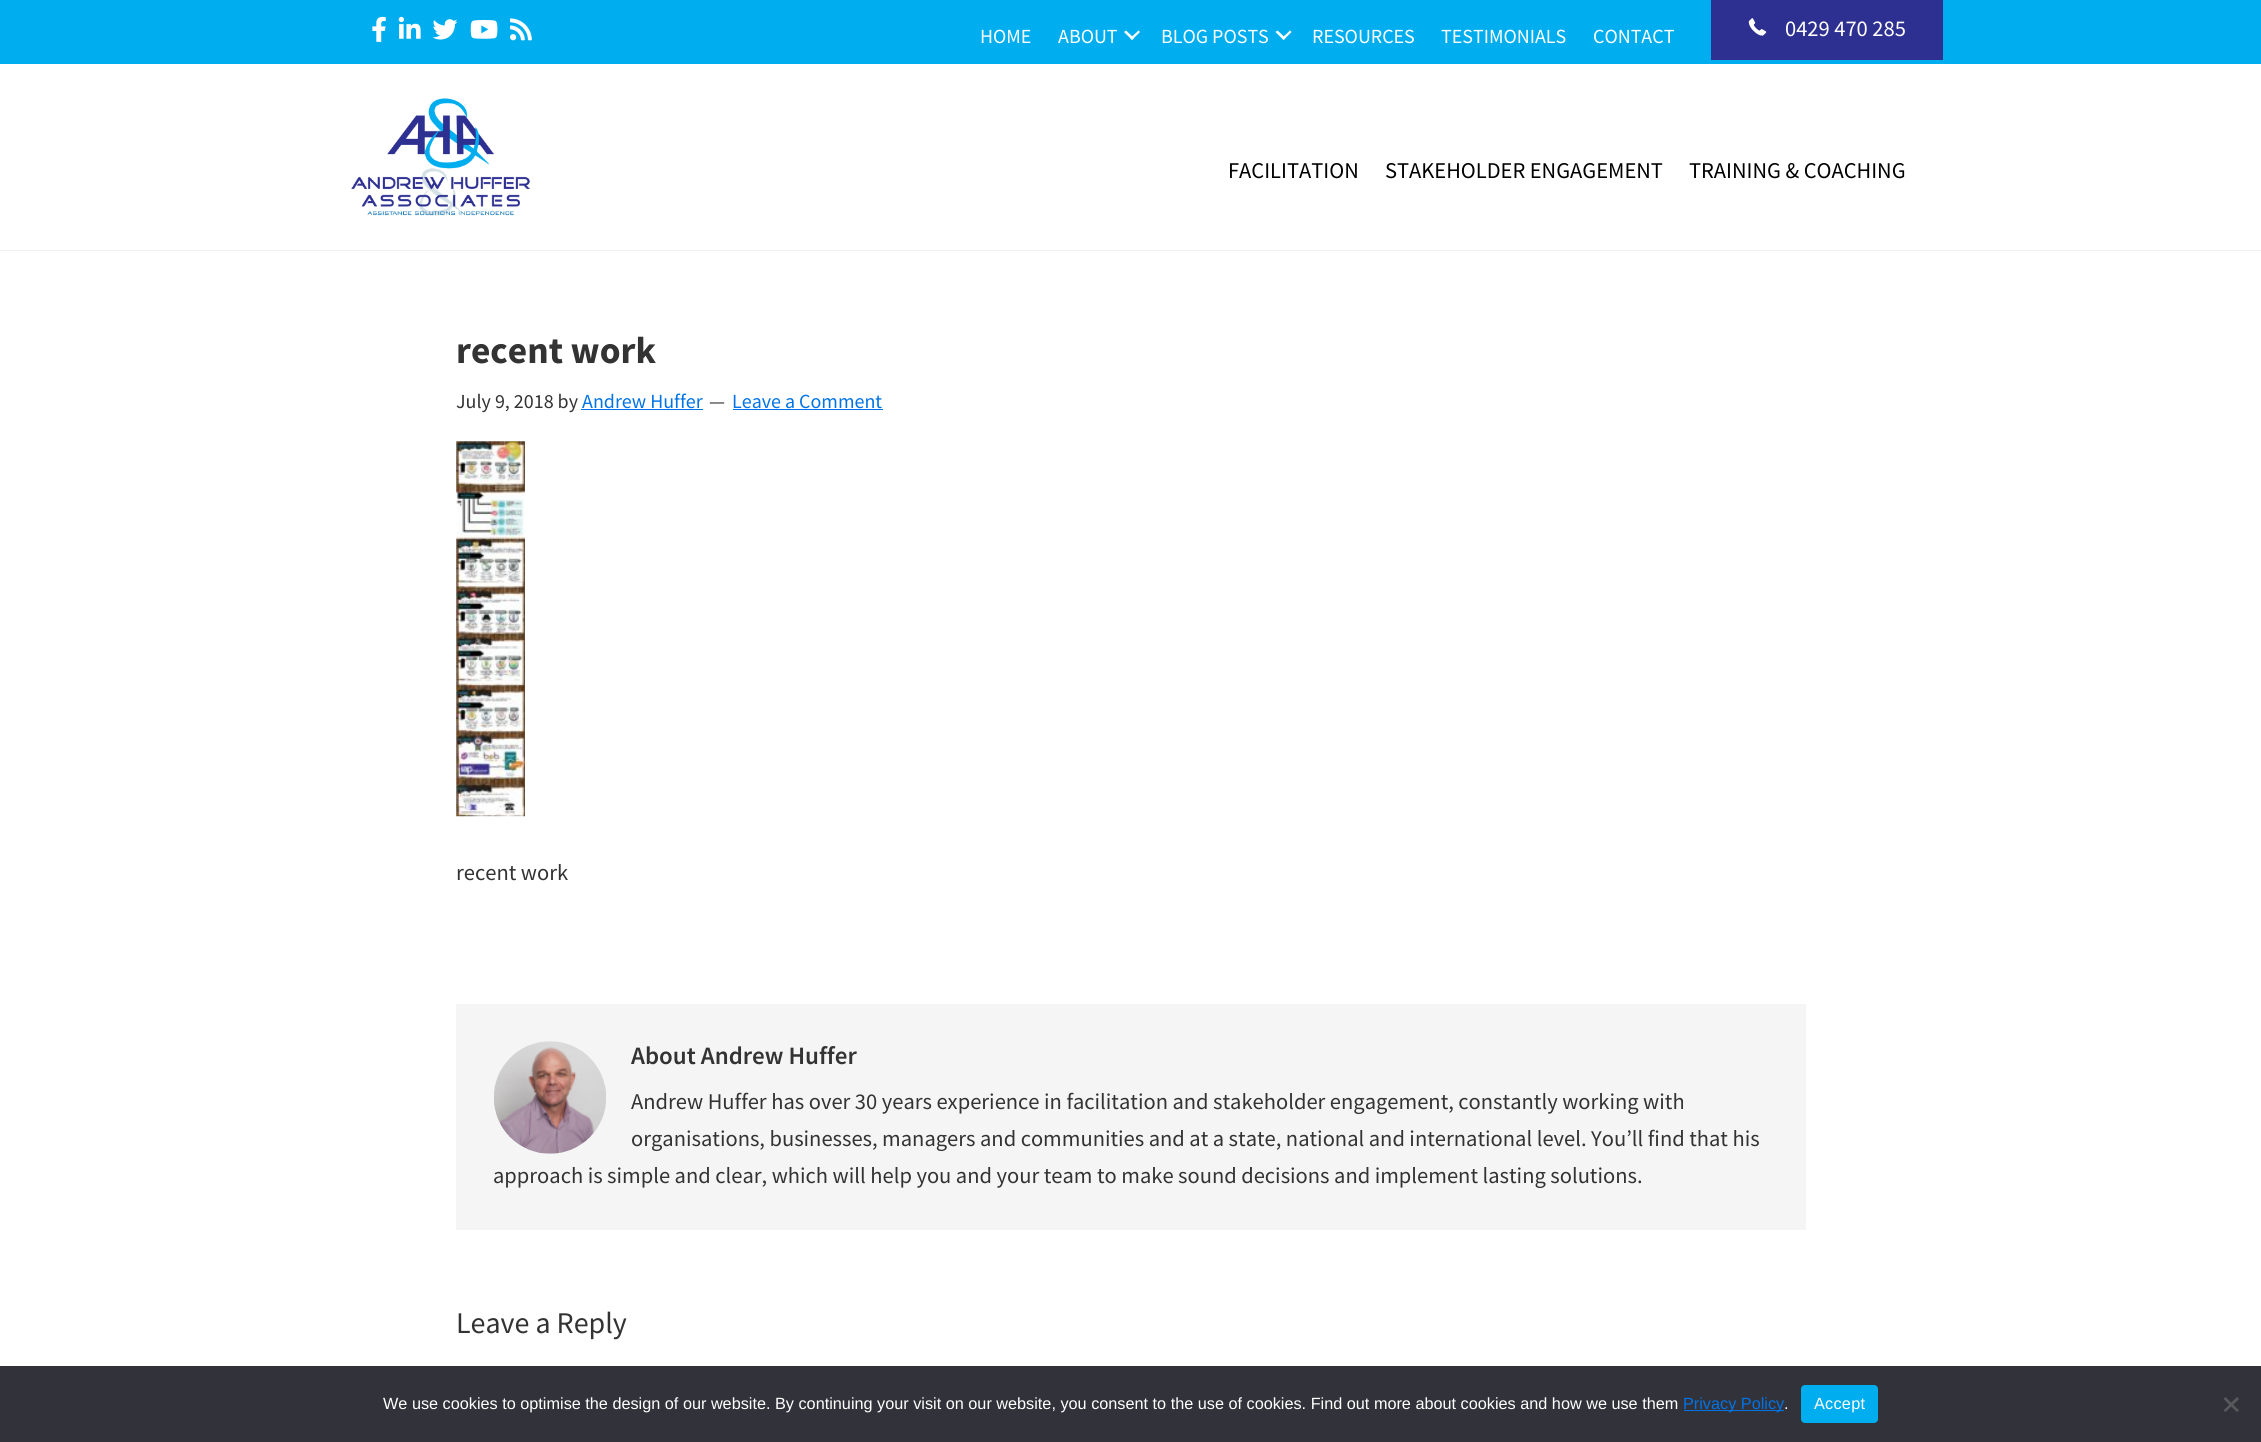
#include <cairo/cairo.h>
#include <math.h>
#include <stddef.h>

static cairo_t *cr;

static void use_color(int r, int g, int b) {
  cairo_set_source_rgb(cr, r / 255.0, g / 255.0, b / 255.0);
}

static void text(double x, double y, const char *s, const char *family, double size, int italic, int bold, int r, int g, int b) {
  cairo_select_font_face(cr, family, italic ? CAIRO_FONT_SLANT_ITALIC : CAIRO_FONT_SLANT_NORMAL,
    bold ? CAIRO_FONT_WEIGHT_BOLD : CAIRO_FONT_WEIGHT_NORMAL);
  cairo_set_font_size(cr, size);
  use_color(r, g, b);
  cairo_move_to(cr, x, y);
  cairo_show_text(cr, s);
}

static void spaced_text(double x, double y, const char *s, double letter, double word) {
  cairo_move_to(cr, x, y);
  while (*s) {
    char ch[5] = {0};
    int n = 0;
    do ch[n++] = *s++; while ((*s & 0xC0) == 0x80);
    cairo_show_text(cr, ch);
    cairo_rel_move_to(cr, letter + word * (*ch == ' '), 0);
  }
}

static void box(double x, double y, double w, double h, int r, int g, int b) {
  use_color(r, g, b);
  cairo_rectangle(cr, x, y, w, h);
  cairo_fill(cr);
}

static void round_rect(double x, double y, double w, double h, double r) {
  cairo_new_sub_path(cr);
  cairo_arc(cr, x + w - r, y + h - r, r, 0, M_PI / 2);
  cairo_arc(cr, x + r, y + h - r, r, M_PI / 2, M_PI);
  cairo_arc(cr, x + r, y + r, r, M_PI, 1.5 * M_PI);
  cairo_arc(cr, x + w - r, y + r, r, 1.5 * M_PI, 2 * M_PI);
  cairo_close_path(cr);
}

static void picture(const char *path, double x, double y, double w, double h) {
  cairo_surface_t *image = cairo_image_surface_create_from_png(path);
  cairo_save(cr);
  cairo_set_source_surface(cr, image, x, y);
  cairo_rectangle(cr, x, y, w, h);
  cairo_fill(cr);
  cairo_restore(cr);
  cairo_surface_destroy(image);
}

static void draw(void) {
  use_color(255, 255, 255);
  cairo_paint(cr);
  box(0, 0, 2261, 64, 0, 174, 239);
  picture("img_01.png", 372, 16, 14, 26);
  picture("img_02.png", 398, 16, 23, 23);
  picture("img_03.png", 432, 19, 26, 21);
  picture("img_04.png", 470, 20, 28, 19);
  picture("img_05.png", 510, 18, 22, 23);
  use_color(255, 255, 255);
  cairo_new_path(cr);
  cairo_move_to(cr, 1138.5, 30.5);
  cairo_line_to(cr, 1140, 32);
  cairo_line_to(cr, 1132, 40);
  cairo_line_to(cr, 1130.5, 38);
  cairo_close_path(cr);
  cairo_fill(cr);
  cairo_new_path(cr);
  cairo_move_to(cr, 1126, 30.5);
  cairo_line_to(cr, 1134, 38);
  cairo_line_to(cr, 1132, 40);
  cairo_line_to(cr, 1124, 32);
  cairo_close_path(cr);
  cairo_fill(cr);
  cairo_new_path(cr);
  cairo_move_to(cr, 1290, 30.5);
  cairo_line_to(cr, 1291.5, 32);
  cairo_line_to(cr, 1283.5, 40);
  cairo_line_to(cr, 1282, 38);
  cairo_close_path(cr);
  cairo_fill(cr);
  cairo_new_path(cr);
  cairo_move_to(cr, 1277.5, 30.5);
  cairo_line_to(cr, 1285.5, 38);
  cairo_line_to(cr, 1283.5, 40);
  cairo_line_to(cr, 1275.5, 32);
  cairo_close_path(cr);
  cairo_fill(cr);
  box(1711, 0, 232, 60, 46, 48, 145);
  picture("img_06.png", 1748, 18, 19, 18);
  box(0, 250, 2261, 1, 239, 239, 239);
  picture("img_07.png", 351, 98, 179, 118);
  box(581, 409, 122, 1, 0, 115, 229);
  box(733, 409, 150, 1, 0, 115, 229);
  picture("img_08.png", 456, 441, 69, 376);
  box(456, 1004, 1350, 226, 245, 245, 245);
  picture("img_09.png", 494, 1041, 112, 113);
  box(0, 1366, 2261, 76, 50, 50, 58);
  box(1684, 1410, 100, 1, 0, 115, 229);
  use_color(0, 174, 239);
  round_rect(1801, 1385, 77, 38, 4);
  cairo_fill(cr);
  use_color(89, 89, 93);
  cairo_new_path(cr);
  cairo_move_to(cr, 2237, 1397);
  cairo_line_to(cr, 2239, 1399);
  cairo_line_to(cr, 2225.5, 1412);
  cairo_line_to(cr, 2223.5, 1410.5);
  cairo_close_path(cr);
  cairo_fill(cr);
  cairo_new_path(cr);
  cairo_move_to(cr, 2223.5, 1399);
  cairo_line_to(cr, 2225.5, 1397);
  cairo_line_to(cr, 2239, 1410.5);
  cairo_line_to(cr, 2237, 1412);
  cairo_close_path(cr);
  cairo_fill(cr);
  text(980, 43, "HOME", "Source Sans Pro", 20, 0, 0, 255, 255, 255);
  text(1058, 43, "ABOUT", "Source Sans Pro", 20, 0, 0, 255, 255, 255);
  text(1161, 43, "BLOG POSTS", "Source Sans Pro", 20, 0, 0, 255, 255, 255);
  text(1312, 43, "RESOURCES", "Source Sans Pro", 20, 0, 0, 255, 255, 255);
  text(1441, 43, "TESTIMONIALS", "Source Sans Pro", 20, 0, 0, 255, 255, 255);
  text(1593, 43, "CONTACT", "Source Sans Pro", 20, 0, 0, 255, 255, 255);
  text(1785, 36, "0429 470 285", "Source Sans Pro", 22.5, 0, 0, 255, 255, 255);
  text(1228, 178, "FACILITATION", "Source Sans Pro", 22.5, 0, 0, 0, 0, 0);
  text(1385, 178, "STAKEHOLDER ENGAGEMENT", "Source Sans Pro", 22.5, 0, 0, 0, 0, 0);
  text(1689, 178, "TRAINING & COACHING", "Source Sans Pro", 22.5, 0, 0, 0, 0, 0);
  text(456, 363, "recent work", "Source Sans Pro", 37.5, 0, 1, 51, 51, 51);
  text(456, 408, "July 9, 2018 by", "Source Sans Pro", 20, 0, 0, 51, 51, 51);
  text(582, 408, "Andrew Huffer", "Source Sans Pro", 20, 0, 0, 0, 115, 229);
  text(709, 408, "—", "Source Sans Pro", 20, 0, 0, 51, 51, 51);
  text(732, 408, "Leave a Comment", "Source Sans Pro", 20, 0, 0, 0, 115, 229);
  text(456, 880, "recent work", "Source Sans Pro", 22.5, 0, 0, 51, 51, 51);
  text(631, 1064, "About Andrew Huffer", "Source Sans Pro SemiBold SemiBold", 25, 0, 0, 51, 51, 51);
  text(631, 1109, "Andrew Huffer has over 30 years experience in facilitation and stakeholder engagement, constantly working with", "Source Sans Pro", 22.5, 0, 0, 51, 51, 51);
  text(631, 1146, "organisations, businesses, managers and communities and at a state, national and international level. You’ll find that his", "Source Sans Pro", 22.5, 0, 0, 51, 51, 51);
  text(493, 1183, "approach is simple and clear, which will help you and your team to make sound decisions and implement lasting solutions.", "Source Sans Pro", 22.5, 0, 0, 51, 51, 51);
  text(456, 1333, "Leave a Reply", "Source Sans Pro", 30, 0, 0, 51, 51, 51);
  text(383, 1409, "We use cookies to optimise the design of our website. By continuing your visit on our website, you consent to the use of cookies. Find out more about cookies and how we use them", "Liberation Sans", 16.25, 0, 0, 255, 255, 255);
  text(1683, 1409, "Privacy Policy", "Liberation Sans", 16.25, 0, 0, 0, 115, 229);
  text(1784, 1409, ".", "Liberation Sans", 16.25, 0, 0, 255, 255, 255);
  spaced_text(1814, 1409, "Accept", 0.25, 0);
}

int main(void) {
  cairo_surface_t *surface = cairo_image_surface_create(CAIRO_FORMAT_RGB24, 2261, 1442);
  cr = cairo_create(surface);
  cairo_font_options_t *options = cairo_font_options_create();
  cairo_font_options_set_hint_metrics(options, CAIRO_HINT_METRICS_OFF);
  cairo_font_options_set_hint_style(options, CAIRO_HINT_STYLE_NONE);
  cairo_set_font_options(cr, options);
  cairo_set_miter_limit(cr, 4);
  draw();
  cairo_surface_write_to_png(surface, "out.png");
  cairo_font_options_destroy(options);
  cairo_destroy(cr);
  cairo_surface_destroy(surface);
  return 0;
}
